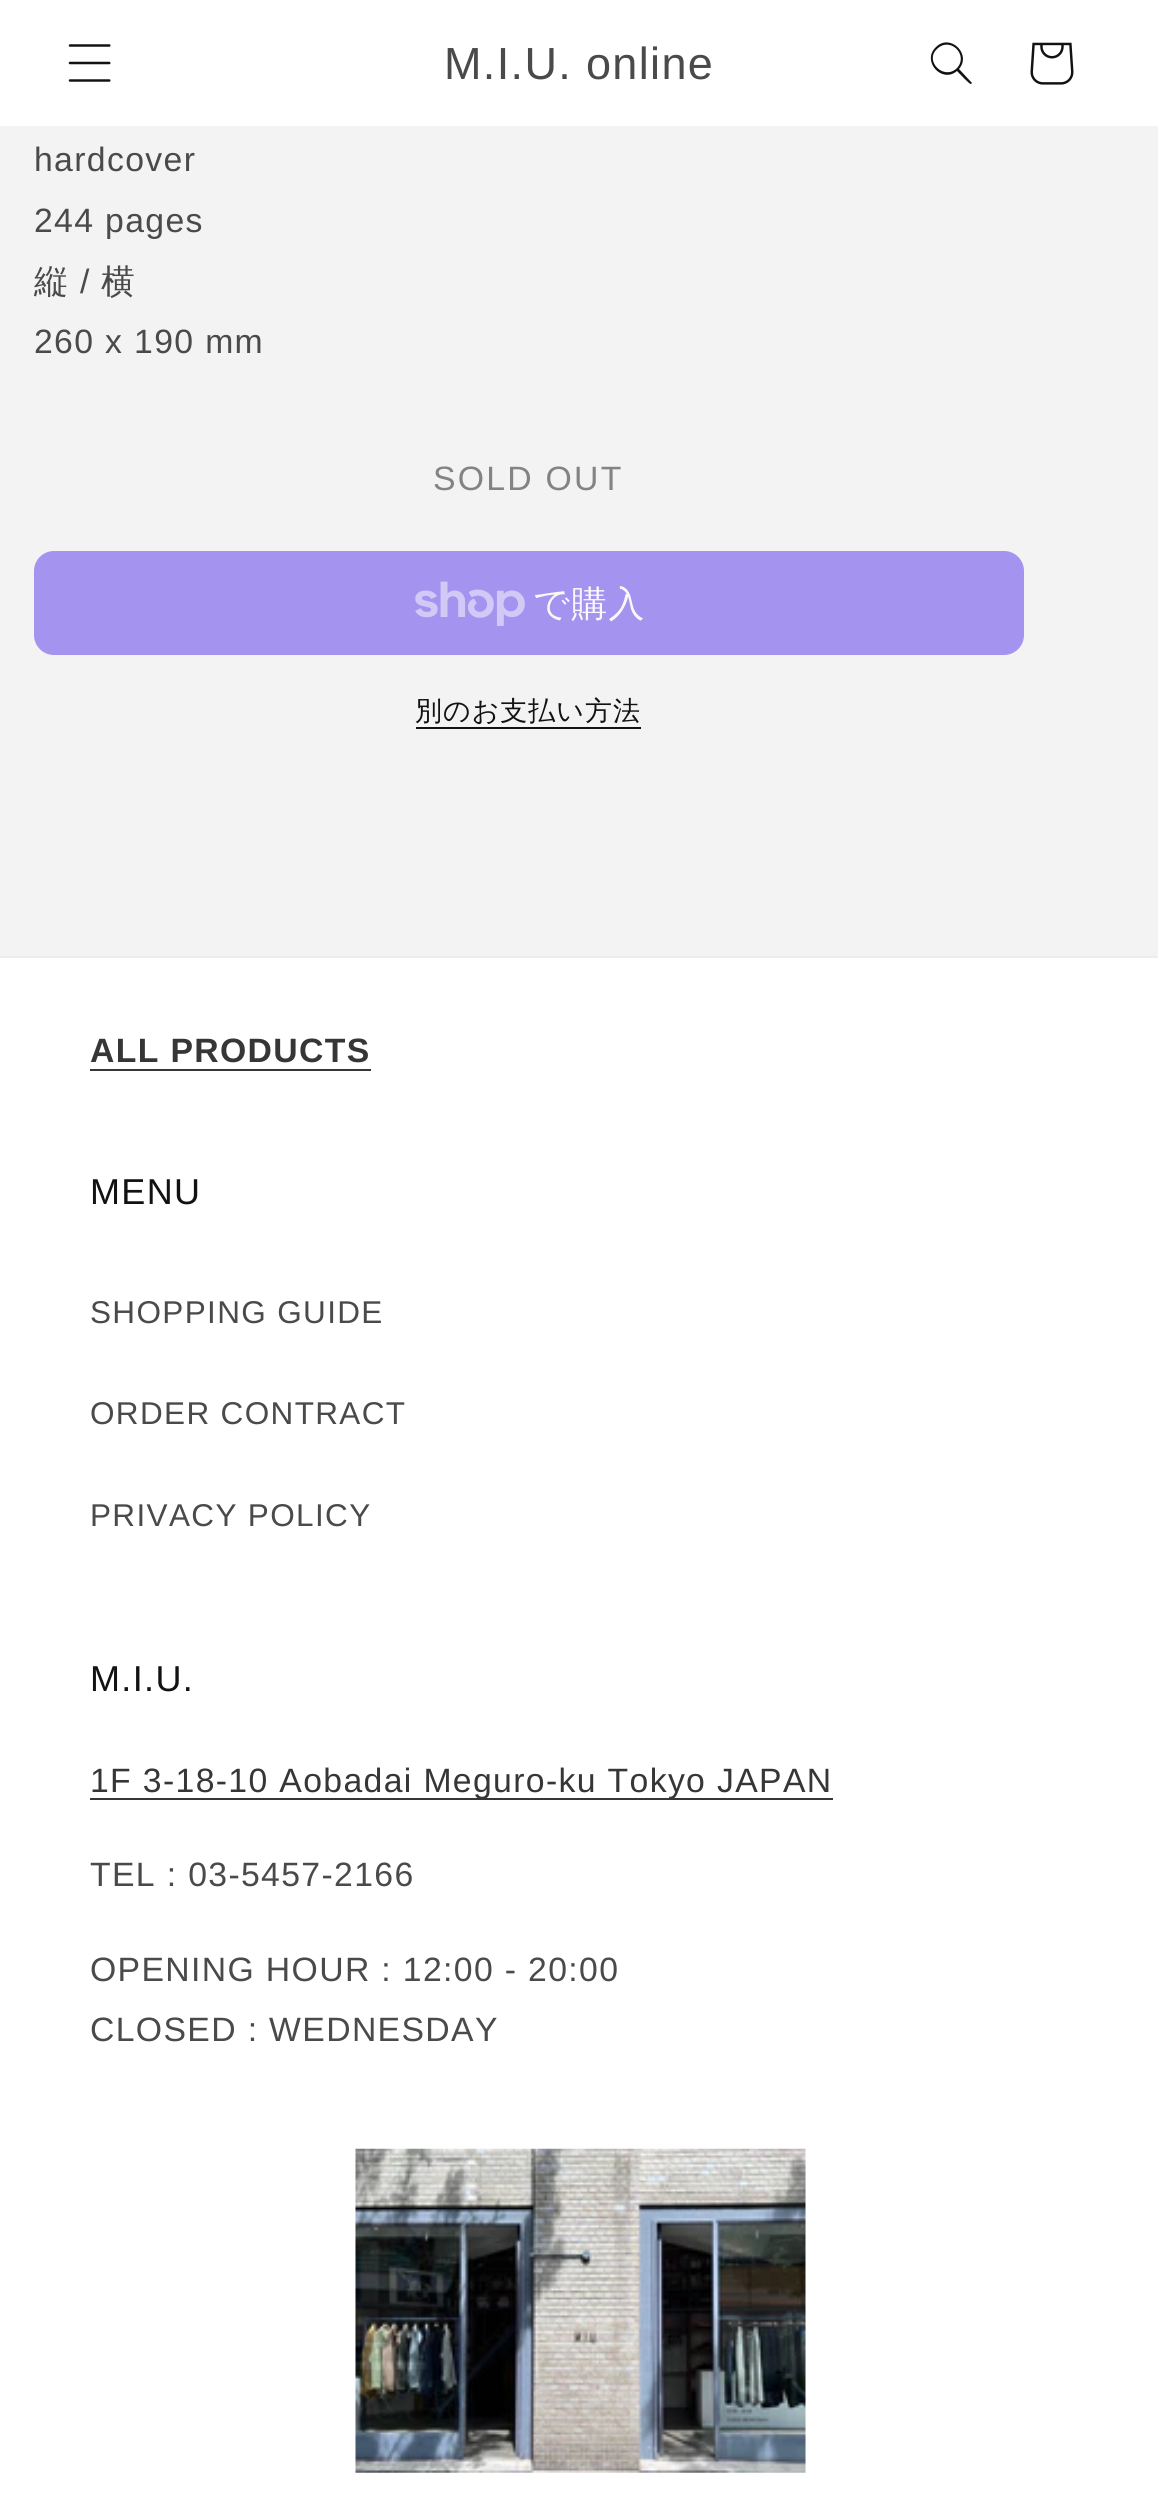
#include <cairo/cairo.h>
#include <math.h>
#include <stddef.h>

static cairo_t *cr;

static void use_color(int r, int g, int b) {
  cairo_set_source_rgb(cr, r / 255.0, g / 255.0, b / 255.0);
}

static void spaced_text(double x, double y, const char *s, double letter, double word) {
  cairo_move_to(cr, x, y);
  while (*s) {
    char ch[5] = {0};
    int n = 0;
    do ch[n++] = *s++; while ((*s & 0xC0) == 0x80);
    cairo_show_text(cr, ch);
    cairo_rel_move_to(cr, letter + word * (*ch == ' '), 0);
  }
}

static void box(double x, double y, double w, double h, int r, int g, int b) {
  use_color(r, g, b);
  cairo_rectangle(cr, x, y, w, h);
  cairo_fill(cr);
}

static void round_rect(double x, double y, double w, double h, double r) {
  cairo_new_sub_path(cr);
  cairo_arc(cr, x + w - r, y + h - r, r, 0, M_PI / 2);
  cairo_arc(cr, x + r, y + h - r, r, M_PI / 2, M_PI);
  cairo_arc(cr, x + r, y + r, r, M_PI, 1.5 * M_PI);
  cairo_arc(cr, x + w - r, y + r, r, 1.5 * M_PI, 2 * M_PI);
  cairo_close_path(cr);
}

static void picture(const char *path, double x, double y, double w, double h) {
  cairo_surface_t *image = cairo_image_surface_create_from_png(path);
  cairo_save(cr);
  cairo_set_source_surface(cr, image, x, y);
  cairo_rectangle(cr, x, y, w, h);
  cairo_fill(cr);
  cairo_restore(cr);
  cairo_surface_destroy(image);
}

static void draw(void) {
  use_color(255, 255, 255);
  cairo_paint(cr);
  picture("img_01.png", 68, 44, 43, 38);
  use_color(18, 18, 18);
  cairo_set_fill_rule(cr, CAIRO_FILL_RULE_EVEN_ODD);
  cairo_new_path(cr);
  cairo_move_to(cr, 957, 68);
  cairo_curve_to(cr, 944, 81, 924, 61, 937, 49);
  cairo_curve_to(cr, 950, 36, 969, 55, 957, 68);
  cairo_close_path(cr);
  cairo_move_to(cr, 957, 71);
  cairo_curve_to(cr, 942, 84, 921, 61, 936, 47);
  cairo_curve_to(cr, 950, 33, 972, 54, 959, 69);
  cairo_line_to(cr, 972, 83);
  cairo_line_to(cr, 971, 84);
  cairo_curve_to(cr, 970, 85, 959, 73, 957, 71);
  cairo_close_path(cr);
  cairo_fill(cr);
  picture("img_02.png", 1030, 42, 44, 43);
  box(0, 126, 1158, 830, 243, 243, 243);
  use_color(164, 147, 239);
  round_rect(34, 551, 990, 104, 20);
  cairo_fill(cr);
  picture("img_03.png", 415, 581, 110, 45);
  box(416, 727, 225, 2, 18, 18, 18);
  box(0, 956, 1158, 2, 236, 236, 236);
  box(90, 1069, 281, 2, 54, 54, 54);
  box(90, 1798, 743, 2, 54, 54, 54);
  picture("img_04.png", 355, 2148, 451, 325);
  cairo_select_font_face(cr, "Liberation Sans", CAIRO_FONT_SLANT_NORMAL, CAIRO_FONT_WEIGHT_NORMAL);
  cairo_set_font_size(cr, 45);
  use_color(74, 74, 74);
  spaced_text(444, 79, "M.I.U. online", 1.35, 0);
  cairo_set_font_size(cr, 33.75);
  spaced_text(34, 171, "hardcover", 1.35, 0);
  spaced_text(34, 232, "244 pages", 1.35, 0);
  cairo_select_font_face(cr, "WenQuanYi Zen Hei Medium", CAIRO_FONT_SLANT_NORMAL, CAIRO_FONT_WEIGHT_NORMAL);
  spaced_text(34, 293, "縦", 1.35, 0);
  cairo_select_font_face(cr, "Liberation Sans", CAIRO_FONT_SLANT_NORMAL, CAIRO_FONT_WEIGHT_NORMAL);
  spaced_text(80, 293, "/", 1.35, 0);
  cairo_select_font_face(cr, "WenQuanYi Zen Hei Medium", CAIRO_FONT_SLANT_NORMAL, CAIRO_FONT_WEIGHT_NORMAL);
  spaced_text(101, 293, "横", 1.35, 0);
  cairo_select_font_face(cr, "Liberation Sans", CAIRO_FONT_SLANT_NORMAL, CAIRO_FONT_WEIGHT_NORMAL);
  spaced_text(34, 353, "260 x 190 mm", 1.35, 0);
  use_color(131, 131, 131);
  spaced_text(433, 490, "SOLD OUT", 2.25, 0);
  cairo_select_font_face(cr, "WenQuanYi Zen Hei Medium", CAIRO_FONT_SLANT_NORMAL, CAIRO_FONT_WEIGHT_NORMAL);
  cairo_set_font_size(cr, 36);
  use_color(249, 249, 249);
  spaced_text(533, 616, "で購入", 1.35, 0);
  cairo_set_font_size(cr, 27);
  use_color(18, 18, 18);
  spaced_text(415, 720, "別のお支払い方法", 1, 0);
  cairo_select_font_face(cr, "Liberation Sans", CAIRO_FONT_SLANT_NORMAL, CAIRO_FONT_WEIGHT_BOLD);
  cairo_set_font_size(cr, 33.75);
  use_color(54, 54, 54);
  spaced_text(90, 1062, "ALL PRODUCTS", 1.35, 0);
  cairo_select_font_face(cr, "Liberation Sans", CAIRO_FONT_SLANT_NORMAL, CAIRO_FONT_WEIGHT_NORMAL);
  cairo_set_font_size(cr, 36);
  use_color(18, 18, 18);
  spaced_text(90, 1204, "MENU", 1.35, 0);
  cairo_set_font_size(cr, 31.5);
  use_color(74, 74, 74);
  spaced_text(90, 1323, "SHOPPING GUIDE", 1.35, 0);
  spaced_text(90, 1424, "ORDER CONTRACT", 1.35, 0);
  spaced_text(90, 1526, "PRIVACY POLICY", 1.35, 0);
  cairo_set_font_size(cr, 36);
  use_color(18, 18, 18);
  spaced_text(90, 1691, "M.I.U.", 1.35, 0);
  cairo_set_font_size(cr, 33.75);
  use_color(54, 54, 54);
  spaced_text(90, 1792, "1F 3-18-10 Aobadai Meguro-ku Tokyo JAPAN", 1.35, 0);
  use_color(74, 74, 74);
  spaced_text(90, 1886, "TEL : 03-5457-2166", 1.35, 0);
  spaced_text(90, 1981, "OPENING HOUR : 12:00 - 20:00", 1.35, 0);
  spaced_text(90, 2041, "CLOSED : WEDNESDAY", 1.35, 0);
}

int main(void) {
  cairo_surface_t *surface = cairo_image_surface_create(CAIRO_FORMAT_RGB24, 1158, 2513);
  cr = cairo_create(surface);
  cairo_font_options_t *options = cairo_font_options_create();
  cairo_font_options_set_hint_metrics(options, CAIRO_HINT_METRICS_OFF);
  cairo_font_options_set_hint_style(options, CAIRO_HINT_STYLE_NONE);
  cairo_set_font_options(cr, options);
  cairo_set_miter_limit(cr, 4);
  draw();
  cairo_surface_write_to_png(surface, "out.png");
  cairo_font_options_destroy(options);
  cairo_destroy(cr);
  cairo_surface_destroy(surface);
  return 0;
}
